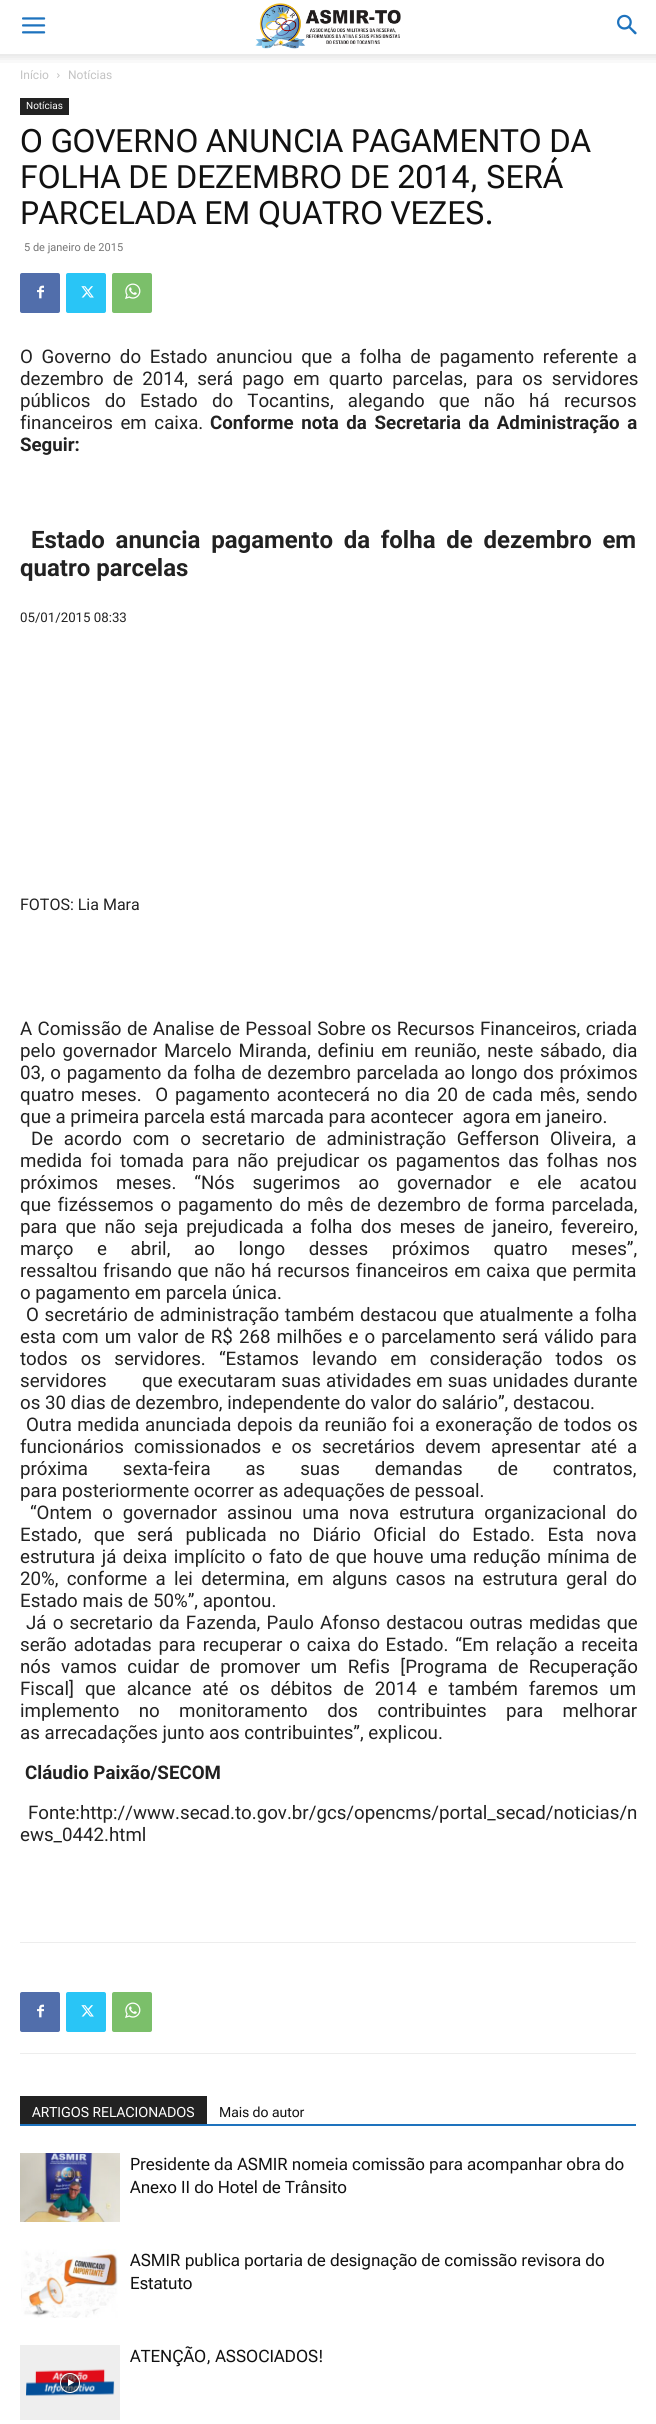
#include <cairo/cairo.h>
#include <math.h>
#include <stddef.h>

static cairo_t *cr;

static void use_color(int r, int g, int b) {
  cairo_set_source_rgb(cr, r / 255.0, g / 255.0, b / 255.0);
}

static void text(double x, double y, const char *s, const char *family, double size, int italic, int bold, int r, int g, int b) {
  cairo_select_font_face(cr, family, italic ? CAIRO_FONT_SLANT_ITALIC : CAIRO_FONT_SLANT_NORMAL,
    bold ? CAIRO_FONT_WEIGHT_BOLD : CAIRO_FONT_WEIGHT_NORMAL);
  cairo_set_font_size(cr, size);
  use_color(r, g, b);
  cairo_move_to(cr, x, y);
  cairo_show_text(cr, s);
}

static void spaced_text(double x, double y, const char *s, double letter, double word) {
  cairo_move_to(cr, x, y);
  while (*s) {
    char ch[5] = {0};
    int n = 0;
    do ch[n++] = *s++; while ((*s & 0xC0) == 0x80);
    cairo_show_text(cr, ch);
    cairo_rel_move_to(cr, letter + word * (*ch == ' '), 0);
  }
}

static void box(double x, double y, double w, double h, int r, int g, int b) {
  use_color(r, g, b);
  cairo_rectangle(cr, x, y, w, h);
  cairo_fill(cr);
}

static void round_rect(double x, double y, double w, double h, double r) {
  cairo_new_sub_path(cr);
  cairo_arc(cr, x + w - r, y + h - r, r, 0, M_PI / 2);
  cairo_arc(cr, x + r, y + h - r, r, M_PI / 2, M_PI);
  cairo_arc(cr, x + r, y + r, r, M_PI, 1.5 * M_PI);
  cairo_arc(cr, x + w - r, y + r, r, 1.5 * M_PI, 2 * M_PI);
  cairo_close_path(cr);
}

static void shadow(double x, double y, double w, double h, double r, double blur, double alpha) {
  cairo_push_group_with_content(cr, CAIRO_CONTENT_ALPHA);
  cairo_set_operator(cr, CAIRO_OPERATOR_SOURCE);
  for (int i = 15; i >= -15 && fmin(w, h) + blur * i / 3 > 0; i -= 2) {
    double e = blur * i / 6;
    cairo_set_source_rgba(cr, 0, 0, 0, alpha * erfc((i - 1) / 8.5) / 2);
    round_rect(x - e, y - e, w + 2 * e, h + 2 * e, fmax(0, fmin(r + e + blur * .6, fmin(w, h) / 2 + e)));
    cairo_fill(cr);
  }
  cairo_pattern_t *soft = cairo_pop_group(cr);
  cairo_mask(cr, soft);
  cairo_pattern_destroy(soft);
}

static void picture(const char *path, double x, double y, double w, double h) {
  cairo_surface_t *image = cairo_image_surface_create_from_png(path);
  cairo_save(cr);
  cairo_set_source_surface(cr, image, x, y);
  cairo_rectangle(cr, x, y, w, h);
  cairo_fill(cr);
  cairo_restore(cr);
  cairo_surface_destroy(image);
}

static void draw(void) {
  use_color(255, 255, 255);
  cairo_paint(cr);
  picture("img_01.png", 22, 17, 24, 17);
  picture("img_02.png", 255, 3, 146, 46);
  picture("img_03.png", 617, 14, 20, 21);
  picture("img_04.png", 0, 54, 656, 9);
  picture("img_05.png", 57, 73, 3, 5);
  box(20, 98, 49, 17, 34, 34, 34);
  use_color(81, 110, 171);
  round_rect(20, 273, 40, 40, 2);
  cairo_fill(cr);
  picture("img_06.png", 37, 285, 7, 14);
  use_color(41, 197, 246);
  round_rect(66, 273, 40, 40, 2);
  cairo_fill(cr);
  picture("img_07.png", 81, 286, 13, 12);
  use_color(123, 191, 106);
  round_rect(112, 273, 40, 40, 2);
  cairo_fill(cr);
  picture("img_08.png", 125, 283, 16, 16);
  box(20, 1942, 616, 1, 237, 237, 237);
  box(20, 2053, 616, 1, 237, 237, 237);
  use_color(81, 110, 171);
  round_rect(20, 1992, 40, 40, 2);
  cairo_fill(cr);
  picture("img_06.png", 37, 2004, 7, 14);
  use_color(41, 197, 246);
  round_rect(66, 1992, 40, 40, 2);
  cairo_fill(cr);
  picture("img_07.png", 81, 2005, 13, 12);
  use_color(123, 191, 106);
  round_rect(112, 1992, 40, 40, 2);
  cairo_fill(cr);
  picture("img_08.png", 125, 2002, 16, 16);
  box(20, 2124, 616, 2, 30, 115, 190);
  box(20, 2096, 187, 28, 34, 34, 34);
  picture("img_09.png", 20, 2153, 100, 69);
  picture("img_10.png", 21, 2249, 97, 69);
  picture("img_11.png", 20, 2345, 100, 75);
  cairo_save(cr);
  cairo_set_fill_rule(cr, CAIRO_FILL_RULE_EVEN_ODD);
  cairo_new_path(cr);
  cairo_move_to(cr, 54, 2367);
  cairo_line_to(cr, 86, 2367);
  cairo_line_to(cr, 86, 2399);
  cairo_line_to(cr, 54, 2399);
  cairo_close_path(cr);
  cairo_move_to(cr, 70, 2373);
  cairo_curve_to(cr, 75.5, 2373, 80, 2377.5, 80, 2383);
  cairo_curve_to(cr, 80, 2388.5, 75.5, 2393, 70, 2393);
  cairo_curve_to(cr, 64.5, 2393, 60, 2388.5, 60, 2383);
  cairo_curve_to(cr, 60, 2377.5, 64.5, 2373, 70, 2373);
  cairo_close_path(cr);
  cairo_clip(cr);
  use_color(0, 0, 0);
  shadow(60, 2373, 20, 20, 10, 1.5, 0.4);
  cairo_restore(cr);
  cairo_set_source_rgba(cr, 0, 0, 0, 0.48);
  cairo_arc(cr, 70, 2383, 9.5, 0, 2 * M_PI);
  cairo_fill_preserve(cr);
  use_color(255, 255, 255);
  cairo_set_line_width(cr, 1);
  cairo_stroke(cr);
  cairo_new_path(cr);
  cairo_move_to(cr, 68, 2379);
  cairo_line_to(cr, 68, 2386);
  cairo_line_to(cr, 74, 2382.5);
  cairo_close_path(cr);
  cairo_fill(cr);
  text(20, 79, "Início", "Roboto", 12, 0, 0, 195, 195, 195);
  text(68, 79, "Notícias", "Roboto", 12, 0, 0, 195, 195, 195);
  text(26, 109, "Notícias", "Roboto", 10, 0, 0, 255, 255, 255);
  text(20, 152, "O GOVERNO ANUNCIA PAGAMENTO DA", "Roboto Flex", 32, 0, 0, 17, 17, 17);
  text(20, 188, "FOLHA DE DEZEMBRO DE 2014, SERÁ", "Roboto Flex", 32, 0, 0, 17, 17, 17);
  text(20, 224, "PARCELADA EM QUATRO VEZES.", "Roboto Flex", 32, 0, 0, 17, 17, 17);
  text(24, 251, "5 de janeiro de 2015", "Roboto", 11, 0, 0, 118, 118, 118);
  cairo_set_font_size(cr, 18.7);
  use_color(34, 34, 34);
  spaced_text(20, 363, "O Governo do Estado anunciou que a folha de pagamento referente a", 0, 4);
  spaced_text(20, 385, "dezembro de 2014, será pago em quarto parcelas, para os servidores", 0, 4.5);
  spaced_text(20, 407, "públicos do Estado do Tocantins, alegando que não há", 0, 9.5);
  text(564, 407, "recursos", "Roboto", 18.7, 0, 0, 34, 34, 34);
  spaced_text(20, 429, "financeiros em caixa.", 0, 3);
  cairo_select_font_face(cr, "Roboto", CAIRO_FONT_SLANT_NORMAL, CAIRO_FONT_WEIGHT_BOLD);
  spaced_text(210, 429, "Conforme nota da Secretaria da Administração a", 0, 3);
  text(20, 451, "Seguir:", "Roboto", 18.7, 0, 1, 34, 34, 34);
  cairo_set_font_size(cr, 24);
  spaced_text(31, 548, "Estado anuncia pagamento da folha de dezembro em", 0, 4.75);
  text(20, 576, "quatro parcelas", "Roboto", 24, 0, 1, 34, 34, 34);
  text(20, 622, "05/01/2015 08:33", "Roboto", 13.25, 0, 0, 34, 34, 34);
  text(20, 910, "FOTOS: Lia Mara", "Roboto", 16, 0, 0, 34, 34, 34);
  cairo_set_font_size(cr, 18.7);
  spaced_text(20, 1035, "A Comissão de Analise de Pessoal Sobre os Recursos Financeiros, criada", 0, 0.75);
  spaced_text(20, 1057, "pelo governador Marcelo Miranda, definiu em reunião, neste sábado, dia", 0, 2.25);
  spaced_text(20, 1079, "03, o pagamento da folha de dezembro parcelada ao longo dos próximos", 0, 1);
  spaced_text(20, 1101, "quatro meses.  O pagamento acontecerá no dia 20 de cada mês, sendo", 0, 2.25);
  text(20, 1123, "que a primeira parcela está marcada para acontecer  agora em janeiro.", "Roboto", 18.7, 0, 0, 34, 34, 34);
  spaced_text(31, 1145, "De acordo com o secretario de administração Gefferson Oliveira, a", 0, 6);
  spaced_text(20, 1167, "medida foi tomada para não prejudicar os pagamentos das folhas nos", 0, 3.4);
  spaced_text(20, 1189, "próximos meses. “Nós sugerimos ao governador e ele acatou", 0, 13.25);
  spaced_text(20, 1211, "que fizéssemos o pagamento do mês de dezembro de forma parcelada,", 0, 2.1);
  spaced_text(20, 1233, "para que não seja prejudicada a folha dos meses de janeiro, fevereiro,", 0, 3.6);
  spaced_text(20, 1255, "março e abril, ao longo desses próximos quatro meses”,", 0, 19);
  spaced_text(20, 1277, "ressaltou frisando que não há recursos financeiros em caixa que permita", 0, 1.1);
  text(20, 1299, "o pagamento em parcela única.", "Roboto", 18.7, 0, 0, 34, 34, 34);
  spaced_text(26, 1321, "O secretário de administração também destacou que atualmente a folha", 0, 1);
  spaced_text(20, 1343, "esta com um valor de R$ 268 milhões e o parcelamento será válido para", 0, 1.4);
  spaced_text(20, 1365, "todos os servidores. “Estamos levando em consideração todos os", 0, 8.5);
  spaced_text(20, 1387, "servidores       que executaram suas atividades em suas unidades durante", 0, 0.4);
  text(20, 1409, "os 30 dias de dezembro, independente do valor do salário”, destacou.", "Roboto", 18.7, 0, 0, 34, 34, 34);
  spaced_text(26, 1431, "Outra medida anunciada depois da reunião foi a exoneração de todos os", 0, 0.9);
  spaced_text(20, 1453, "funcionários comissionados e os secretários devem apresentar até a", 0, 5.5);
  spaced_text(20, 1475, "próxima sexta-feira as suas demandas de contratos,", 0, 30.25);
  text(20, 1497, "para posteriormente ocorrer as adequações de pessoal.", "Roboto", 18.7, 0, 0, 34, 34, 34);
  spaced_text(30, 1519, "“Ontem o governador assinou uma nova estrutura organizacional do", 0, 5.25);
  spaced_text(20, 1541, "Estado, que será publicada no Diário Oficial do Estado. Esta nova", 0, 7.75);
  spaced_text(20, 1563, "estrutura já deixa implícito o fato de que houve uma redução mínima de", 0, 1.8);
  spaced_text(20, 1585, "20%, conforme a lei determina, em alguns casos na estrutura geral do", 0, 3.6);
  text(20, 1607, "Estado mais de 50%”, apontou.", "Roboto", 18.7, 0, 0, 34, 34, 34);
  spaced_text(26, 1629, "Já o secretario da Fazenda, Paulo Afonso destacou outras medidas que", 0, 1.5);
  spaced_text(20, 1651, "serão adotadas para recuperar o caixa do Estado. “Em relação a receita", 0, 2.25);
  spaced_text(20, 1673, "nós vamos cuidar de promover um Refis [Programa de Recuperação", 0, 5.75);
  spaced_text(20, 1695, "Fiscal] que alcance até os débitos de 2014 e também faremos um", 0, 6.25);
  spaced_text(20, 1717, "implemento no monitoramento dos contribuintes para melhorar", 0, 14.75);
  text(20, 1739, "as arrecadações junto aos contribuintes”, explicou.", "Roboto", 18.7, 0, 0, 34, 34, 34);
  text(25, 1779, "Cláudio Paixão/SECOM", "Roboto", 18.7, 0, 1, 34, 34, 34);
  text(28, 1819, "Fonte:http://www.secad.to.gov.br/gcs/opencms/portal_secad/noticias/n", "Roboto", 18.7, 0, 0, 34, 34, 34);
  text(20, 1841, "ews_0442.html", "Roboto", 18.7, 0, 0, 34, 34, 34);
  text(32, 2117, "ARTIGOS RELACIONADOS", "Roboto Flex", 14, 0, 0, 255, 255, 255);
  text(219, 2117, "Mais do autor", "Roboto Flex", 14, 0, 0, 17, 17, 17);
  text(130, 2170, "Presidente da ASMIR nomeia comissão para acompanhar obra do", "Roboto Flex", 17, 0, 0, 17, 17, 17);
  text(130, 2193, "Anexo II do Hotel de Trânsito", "Roboto Flex", 17, 0, 0, 17, 17, 17);
  text(130, 2266, "ASMIR publica portaria de designação de comissão revisora do", "Roboto Flex", 17, 0, 0, 17, 17, 17);
  text(130, 2289, "Estatuto", "Roboto Flex", 17, 0, 0, 17, 17, 17);
  text(130, 2362, "ATENÇÃO, ASSOCIADOS!", "Roboto Flex", 17, 0, 0, 17, 17, 17);
}

int main(void) {
  cairo_surface_t *surface = cairo_image_surface_create(CAIRO_FORMAT_RGB24, 656, 2424);
  cr = cairo_create(surface);
  cairo_font_options_t *options = cairo_font_options_create();
  cairo_font_options_set_hint_metrics(options, CAIRO_HINT_METRICS_OFF);
  cairo_font_options_set_hint_style(options, CAIRO_HINT_STYLE_NONE);
  cairo_set_font_options(cr, options);
  cairo_set_miter_limit(cr, 4);
  draw();
  cairo_surface_write_to_png(surface, "out.png");
  cairo_font_options_destroy(options);
  cairo_destroy(cr);
  cairo_surface_destroy(surface);
  return 0;
}
